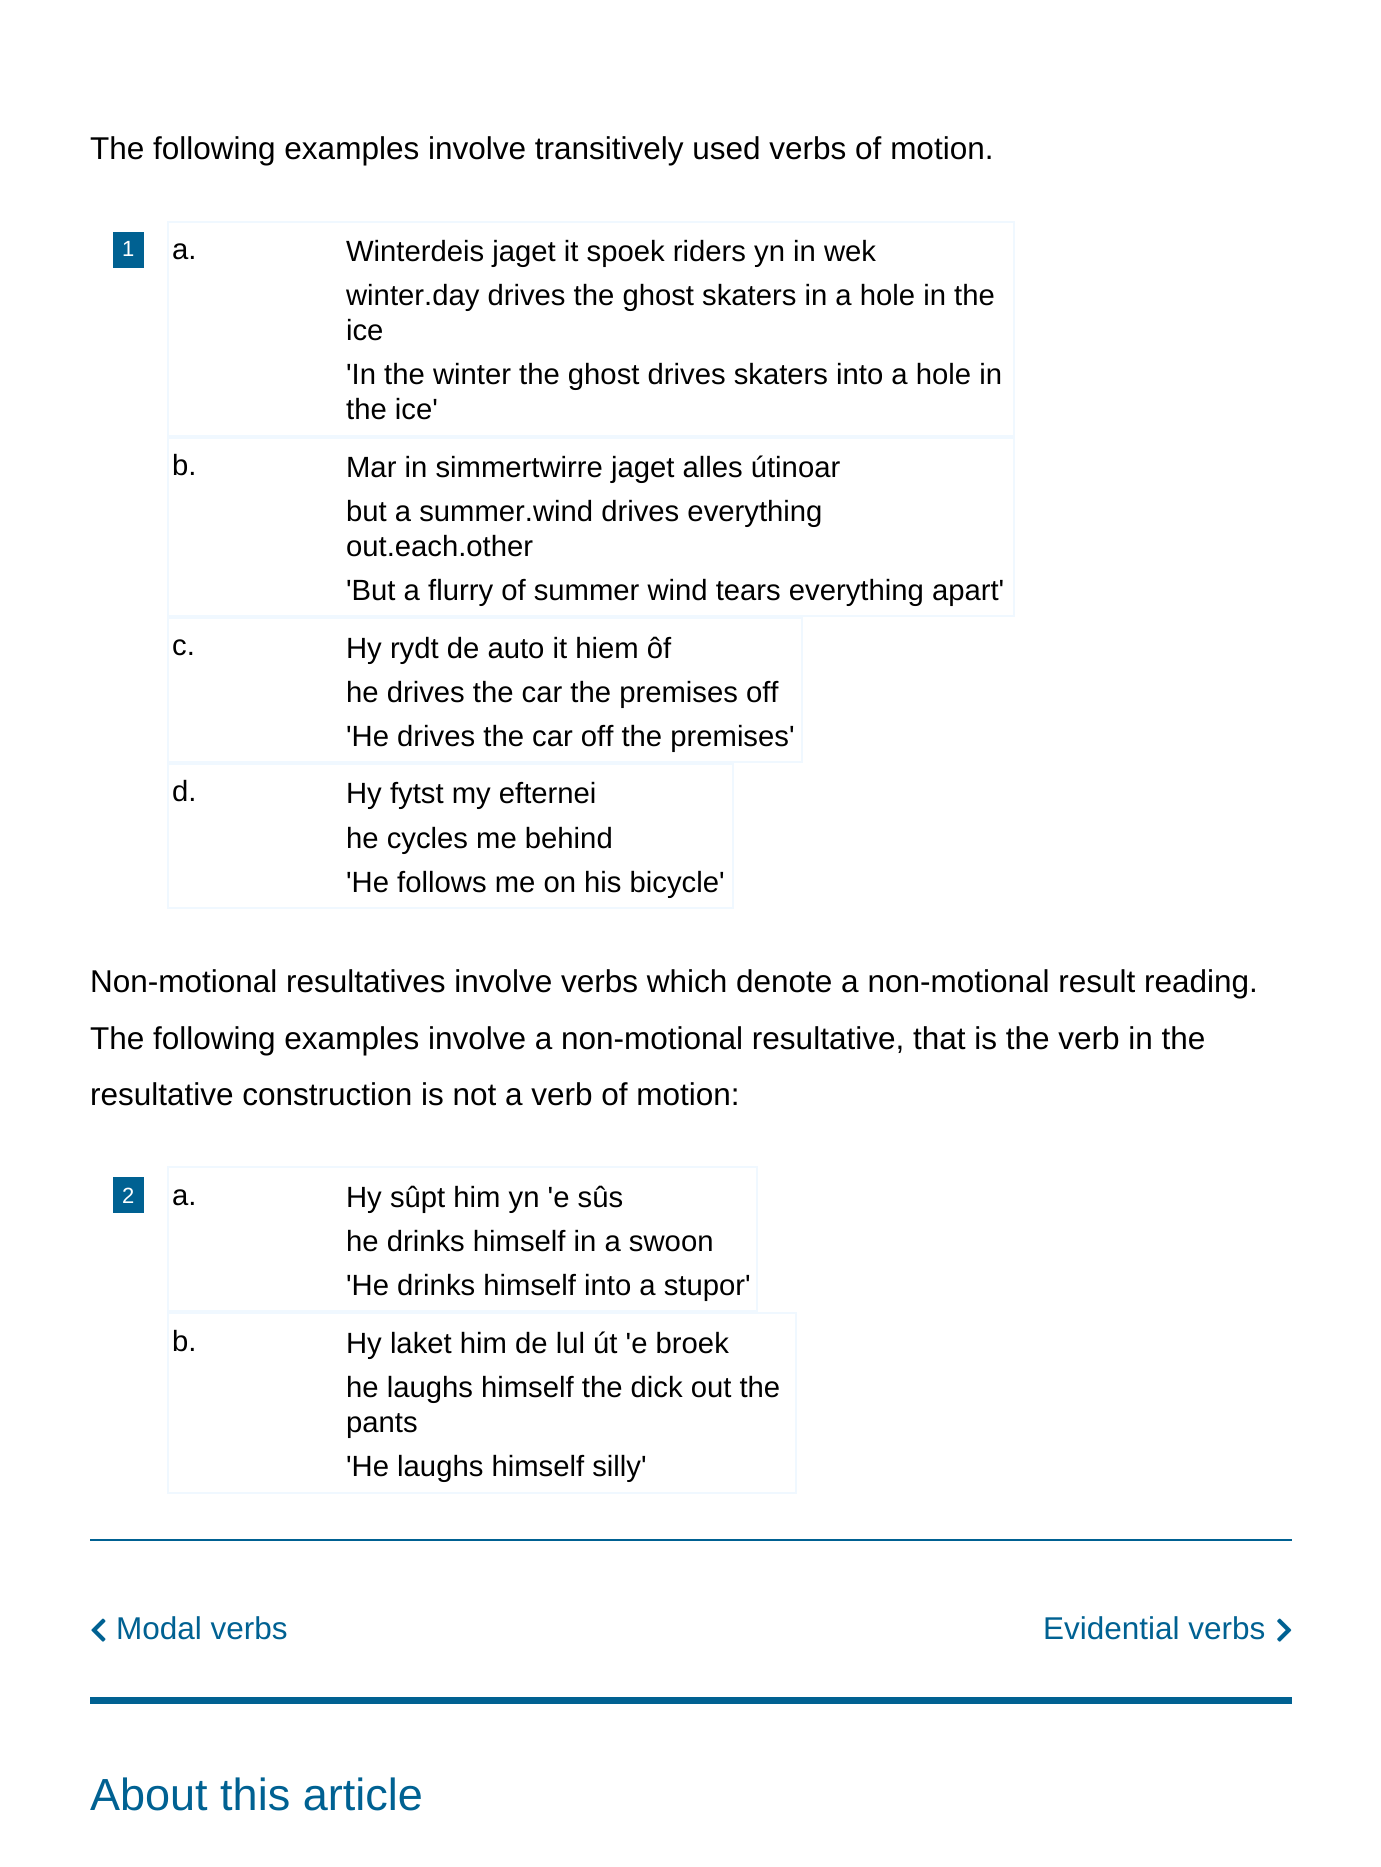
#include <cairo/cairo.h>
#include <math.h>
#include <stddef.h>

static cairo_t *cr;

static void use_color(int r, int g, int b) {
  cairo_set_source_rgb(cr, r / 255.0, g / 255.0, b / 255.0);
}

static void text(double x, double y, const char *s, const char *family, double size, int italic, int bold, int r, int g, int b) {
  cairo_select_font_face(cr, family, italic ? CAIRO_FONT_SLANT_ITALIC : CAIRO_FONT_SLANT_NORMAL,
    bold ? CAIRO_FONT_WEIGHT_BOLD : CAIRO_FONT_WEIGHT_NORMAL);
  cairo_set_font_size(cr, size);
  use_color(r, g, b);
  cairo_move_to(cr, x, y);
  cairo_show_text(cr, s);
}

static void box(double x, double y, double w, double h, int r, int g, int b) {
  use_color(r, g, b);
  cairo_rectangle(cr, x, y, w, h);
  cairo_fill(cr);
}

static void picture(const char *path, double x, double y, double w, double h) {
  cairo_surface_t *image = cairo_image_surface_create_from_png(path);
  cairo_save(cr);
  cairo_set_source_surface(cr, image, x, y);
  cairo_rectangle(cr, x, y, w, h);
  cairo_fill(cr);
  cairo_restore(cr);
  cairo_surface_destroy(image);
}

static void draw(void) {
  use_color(255, 255, 255);
  cairo_paint(cr);
  box(113, 232, 31, 36, 0, 97, 146);
  cairo_rectangle(cr, 168, 222, 846, 214);
  use_color(240, 248, 255);
  cairo_stroke(cr);
  cairo_rectangle(cr, 168, 438, 846, 178);
  cairo_stroke(cr);
  cairo_rectangle(cr, 168, 618, 634, 144);
  cairo_stroke(cr);
  cairo_rectangle(cr, 168, 764, 565, 144);
  cairo_stroke(cr);
  box(113, 1177, 31, 36, 0, 97, 146);
  cairo_rectangle(cr, 168, 1167, 589, 144);
  use_color(240, 248, 255);
  cairo_stroke(cr);
  cairo_rectangle(cr, 168, 1313, 628, 180);
  cairo_stroke(cr);
  box(90, 1539, 1202, 2, 0, 97, 146);
  picture("img_01.png", 91, 1618, 15, 24);
  picture("img_02.png", 1277, 1618, 15, 24);
  box(90, 1697, 1202, 7, 0, 97, 146);
  text(90, 159, "The following examples involve transitively used verbs of motion.", "Liberation Sans", 31.5, 0, 0, 0, 0, 0);
  text(122, 256, "1", "Liberation Sans", 22, 0, 0, 255, 255, 255);
  text(172, 259, "a.", "Liberation Sans", 29.25, 0, 0, 0, 0, 0);
  text(346, 261, "Winterdeis jaget it spoek riders yn in wek", "Liberation Sans", 29.25, 0, 0, 0, 0, 0);
  text(346, 305, "winter.day drives the ghost skaters in a hole in the", "Liberation Sans", 29.25, 0, 0, 0, 0, 0);
  text(346, 340, "ice", "Liberation Sans", 29.25, 0, 0, 0, 0, 0);
  text(346, 384, "'In the winter the ghost drives skaters into a hole in", "Liberation Sans", 29.25, 0, 0, 0, 0, 0);
  text(346, 419, "the ice'", "Liberation Sans", 29.25, 0, 0, 0, 0, 0);
  text(172, 475, "b.", "Liberation Sans", 29.25, 0, 0, 0, 0, 0);
  text(346, 477, "Mar in simmertwirre jaget alles útinoar", "Liberation Sans", 29.25, 0, 0, 0, 0, 0);
  text(346, 521, "but a summer.wind drives everything", "Liberation Sans", 29.25, 0, 0, 0, 0, 0);
  text(346, 556, "out.each.other", "Liberation Sans", 29.25, 0, 0, 0, 0, 0);
  text(346, 600, "'But a flurry of summer wind tears everything apart'", "Liberation Sans", 29.25, 0, 0, 0, 0, 0);
  text(172, 655, "c.", "Liberation Sans", 29.25, 0, 0, 0, 0, 0);
  text(346, 658, "Hy rydt de auto it hiem ôf", "Liberation Sans", 29.25, 0, 0, 0, 0, 0);
  text(346, 702, "he drives the car the premises off", "Liberation Sans", 29.25, 0, 0, 0, 0, 0);
  text(346, 746, "'He drives the car off the premises'", "Liberation Sans", 29.25, 0, 0, 0, 0, 0);
  text(172, 801, "d.", "Liberation Sans", 29.25, 0, 0, 0, 0, 0);
  text(346, 803, "Hy fytst my efternei", "Liberation Sans", 29.25, 0, 0, 0, 0, 0);
  text(346, 848, "he cycles me behind", "Liberation Sans", 29.25, 0, 0, 0, 0, 0);
  text(346, 892, "'He follows me on his bicycle'", "Liberation Sans", 29.25, 0, 0, 0, 0, 0);
  text(90, 992, "Non-motional resultatives involve verbs which denote a non-motional result reading.", "Liberation Sans", 31.5, 0, 0, 0, 0, 0);
  text(90, 1049, "The following examples involve a non-motional resultative, that is the verb in the", "Liberation Sans", 31.5, 0, 0, 0, 0, 0);
  text(90, 1105, "resultative construction is not a verb of motion:", "Liberation Sans", 31.5, 0, 0, 0, 0, 0);
  text(122, 1203, "2", "Liberation Sans", 22, 0, 0, 255, 255, 255);
  text(172, 1205, "a.", "Liberation Sans", 29.25, 0, 0, 0, 0, 0);
  text(346, 1207, "Hy sûpt him yn 'e sûs", "Liberation Sans", 29.25, 0, 0, 0, 0, 0);
  text(346, 1251, "he drinks himself in a swoon", "Liberation Sans", 29.25, 0, 0, 0, 0, 0);
  text(346, 1295, "'He drinks himself into a stupor'", "Liberation Sans", 29.25, 0, 0, 0, 0, 0);
  text(172, 1351, "b.", "Liberation Sans", 29.25, 0, 0, 0, 0, 0);
  text(346, 1353, "Hy laket him de lul út 'e broek", "Liberation Sans", 29.25, 0, 0, 0, 0, 0);
  text(346, 1397, "he laughs himself the dick out the", "Liberation Sans", 29.25, 0, 0, 0, 0, 0);
  text(346, 1432, "pants", "Liberation Sans", 29.25, 0, 0, 0, 0, 0);
  text(346, 1476, "'He laughs himself silly'", "Liberation Sans", 29.25, 0, 0, 0, 0, 0);
  text(116, 1639, "Modal verbs", "Liberation Sans", 31.5, 0, 0, 0, 97, 146);
  text(1043, 1639, "Evidential verbs", "Liberation Sans", 31.5, 0, 0, 0, 97, 146);
  text(90, 1810, "About this article", "Liberation Sans", 45, 0, 0, 0, 97, 146);
}

int main(void) {
  cairo_surface_t *surface = cairo_image_surface_create(CAIRO_FORMAT_RGB24, 1381, 1867);
  cr = cairo_create(surface);
  cairo_font_options_t *options = cairo_font_options_create();
  cairo_font_options_set_hint_metrics(options, CAIRO_HINT_METRICS_OFF);
  cairo_font_options_set_hint_style(options, CAIRO_HINT_STYLE_NONE);
  cairo_set_font_options(cr, options);
  cairo_set_miter_limit(cr, 4);
  draw();
  cairo_surface_write_to_png(surface, "out.png");
  cairo_font_options_destroy(options);
  cairo_destroy(cr);
  cairo_surface_destroy(surface);
  return 0;
}
